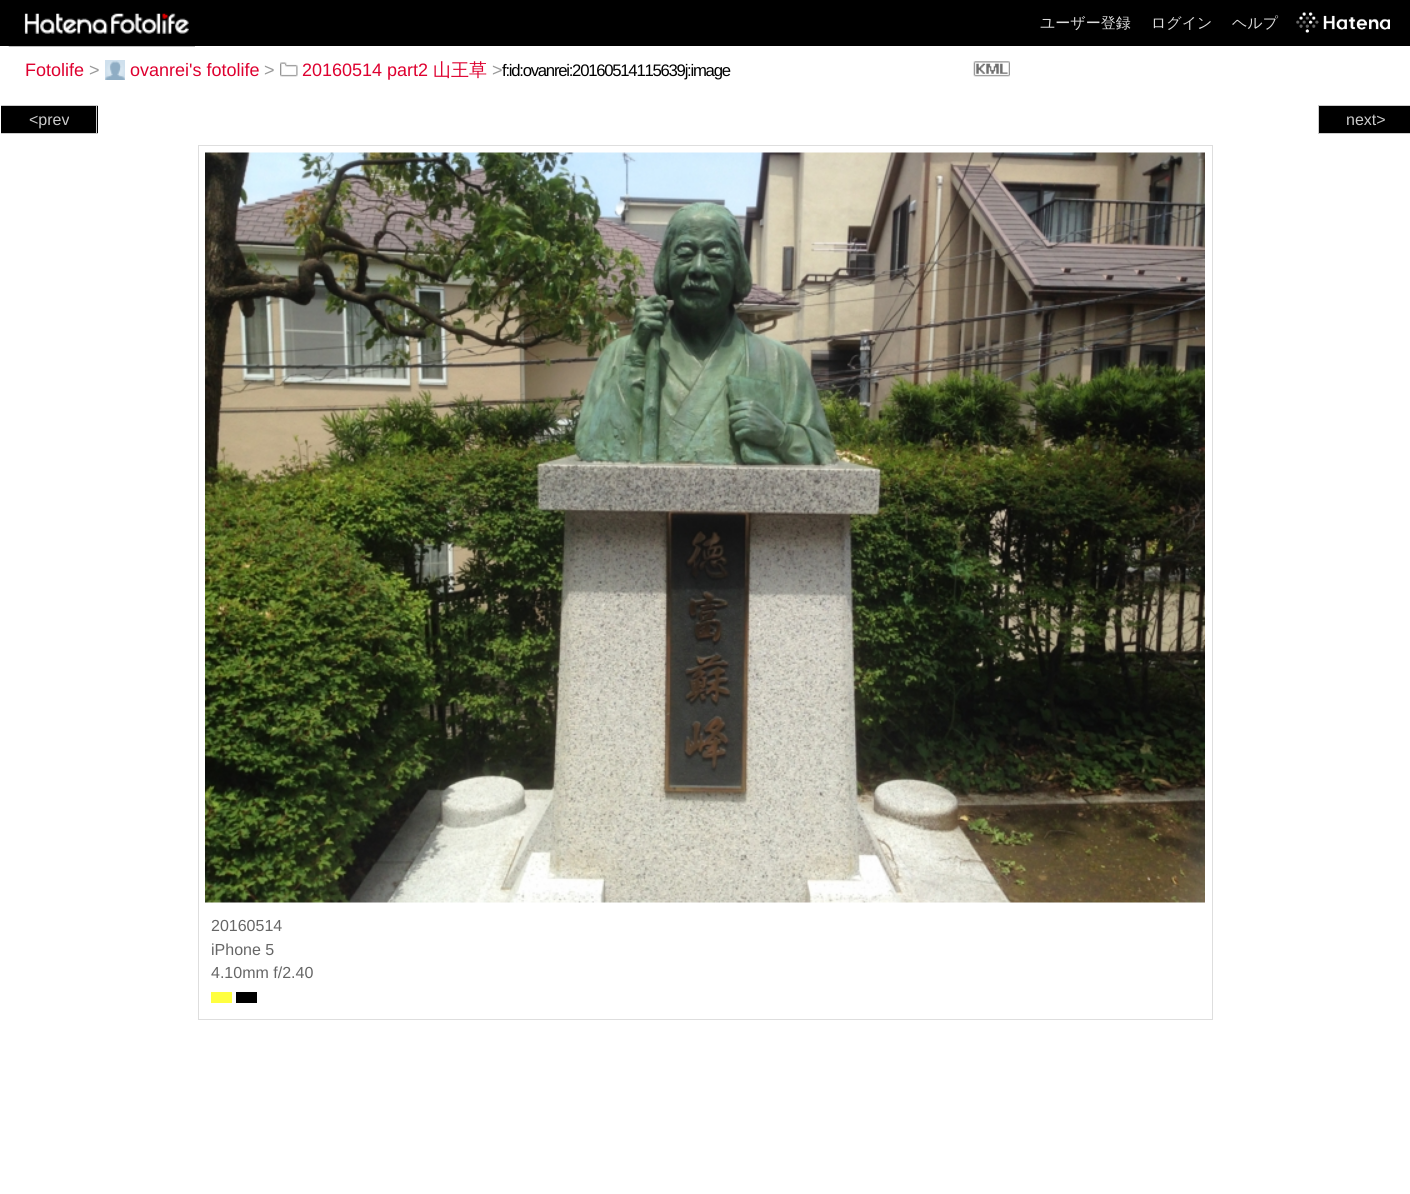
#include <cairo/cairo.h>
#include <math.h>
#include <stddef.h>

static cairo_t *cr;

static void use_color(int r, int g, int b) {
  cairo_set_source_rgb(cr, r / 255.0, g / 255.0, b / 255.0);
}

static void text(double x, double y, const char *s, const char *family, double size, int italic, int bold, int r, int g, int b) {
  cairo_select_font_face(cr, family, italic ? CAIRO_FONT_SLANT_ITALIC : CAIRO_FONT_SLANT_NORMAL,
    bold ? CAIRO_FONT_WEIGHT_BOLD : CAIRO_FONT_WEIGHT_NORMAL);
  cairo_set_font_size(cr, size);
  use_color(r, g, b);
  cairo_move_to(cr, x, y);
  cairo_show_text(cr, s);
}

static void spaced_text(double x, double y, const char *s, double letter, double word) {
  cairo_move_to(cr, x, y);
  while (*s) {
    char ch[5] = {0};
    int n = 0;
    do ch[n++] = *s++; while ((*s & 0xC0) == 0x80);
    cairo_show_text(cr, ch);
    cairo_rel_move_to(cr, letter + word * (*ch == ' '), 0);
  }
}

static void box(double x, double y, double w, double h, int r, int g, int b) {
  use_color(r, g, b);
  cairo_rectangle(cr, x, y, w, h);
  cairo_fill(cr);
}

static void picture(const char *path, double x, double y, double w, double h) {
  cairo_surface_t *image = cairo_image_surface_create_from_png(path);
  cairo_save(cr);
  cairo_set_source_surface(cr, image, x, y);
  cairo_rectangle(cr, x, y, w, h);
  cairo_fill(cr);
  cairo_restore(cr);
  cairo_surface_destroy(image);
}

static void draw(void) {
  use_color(255, 255, 255);
  cairo_paint(cr);
  box(0, 0, 1410, 46, 0, 0, 0);
  picture("img_01.png", 8, 13, 104, 34);
  picture("img_02.png", 111, 13, 84, 34);
  picture("img_03.png", 1296, 12, 94, 21);
  picture("img_04.png", 105, 60, 20, 20);
  picture("img_05.png", 280, 62, 18, 15);
  picture("img_06.png", 973, 61, 37, 16);
  box(1, 106, 97, 27, 0, 0, 0);
  box(1, 105, 97, 1, 204, 204, 204);
  box(96, 105, 1, 29, 204, 204, 204);
  box(1, 133, 97, 1, 204, 204, 204);
  box(1319, 106, 91, 27, 0, 0, 0);
  box(1318, 105, 92, 1, 204, 204, 204);
  box(1318, 133, 92, 1, 204, 204, 204);
  box(1318, 105, 1, 29, 204, 204, 204);
  cairo_rectangle(cr, 198.5, 145.5, 1014, 874);
  use_color(222, 222, 222);
  cairo_set_line_width(cr, 1);
  cairo_stroke(cr);
  picture("img_07.png", 205, 152, 1000, 751);
  box(211, 992, 21, 11, 255, 255, 64);
  box(236, 992, 21, 11, 0, 0, 0);
  text(1040, 28, "ユーザー登録", "WenQuanYi Zen Hei Medium", 15, 0, 0, 221, 221, 221);
  text(1151, 28, "ログイン", "WenQuanYi Zen Hei Medium", 15, 0, 0, 221, 221, 221);
  text(1232, 28, "ヘルプ", "WenQuanYi Zen Hei Medium", 15, 0, 0, 221, 221, 221);
  text(25, 76, "Fotolife", "Liberation Sans", 18, 0, 0, 222, 0, 47);
  text(89, 76, ">", "Liberation Sans", 18, 0, 0, 153, 153, 153);
  text(130, 76, "ovanrei's fotolife", "Liberation Sans", 18, 0, 0, 222, 0, 47);
  text(264, 76, ">", "Liberation Sans", 18, 0, 0, 153, 153, 153);
  text(302, 76, "20160514 part2", "Liberation Sans", 18, 0, 0, 222, 0, 47);
  text(433, 76, "山王草", "WenQuanYi Zen Hei Medium", 18, 0, 0, 222, 0, 47);
  text(492, 76, ">", "Liberation Sans", 18, 0, 0, 153, 153, 153);
  cairo_set_font_size(cr, 16.7);
  use_color(0, 0, 0);
  spaced_text(502, 76, "f:id:ovanrei:20160514115639j:image", -1.25, 0);
  text(29, 125, "<prev", "Liberation Sans", 16, 0, 0, 204, 204, 204);
  text(1346, 125, "next>", "Liberation Sans", 16, 0, 0, 204, 204, 204);
  text(211, 931, "20160514", "Liberation Sans", 16, 0, 0, 102, 102, 102);
  text(211, 955, "iPhone 5", "Liberation Sans", 16, 0, 0, 102, 102, 102);
  text(211, 978, "4.10mm f/2.40", "Liberation Sans", 16, 0, 0, 102, 102, 102);
}

int main(void) {
  cairo_surface_t *surface = cairo_image_surface_create(CAIRO_FORMAT_RGB24, 1410, 1194);
  cr = cairo_create(surface);
  cairo_font_options_t *options = cairo_font_options_create();
  cairo_font_options_set_hint_metrics(options, CAIRO_HINT_METRICS_OFF);
  cairo_font_options_set_hint_style(options, CAIRO_HINT_STYLE_NONE);
  cairo_set_font_options(cr, options);
  cairo_set_miter_limit(cr, 4);
  draw();
  cairo_surface_write_to_png(surface, "out.png");
  cairo_font_options_destroy(options);
  cairo_destroy(cr);
  cairo_surface_destroy(surface);
  return 0;
}
